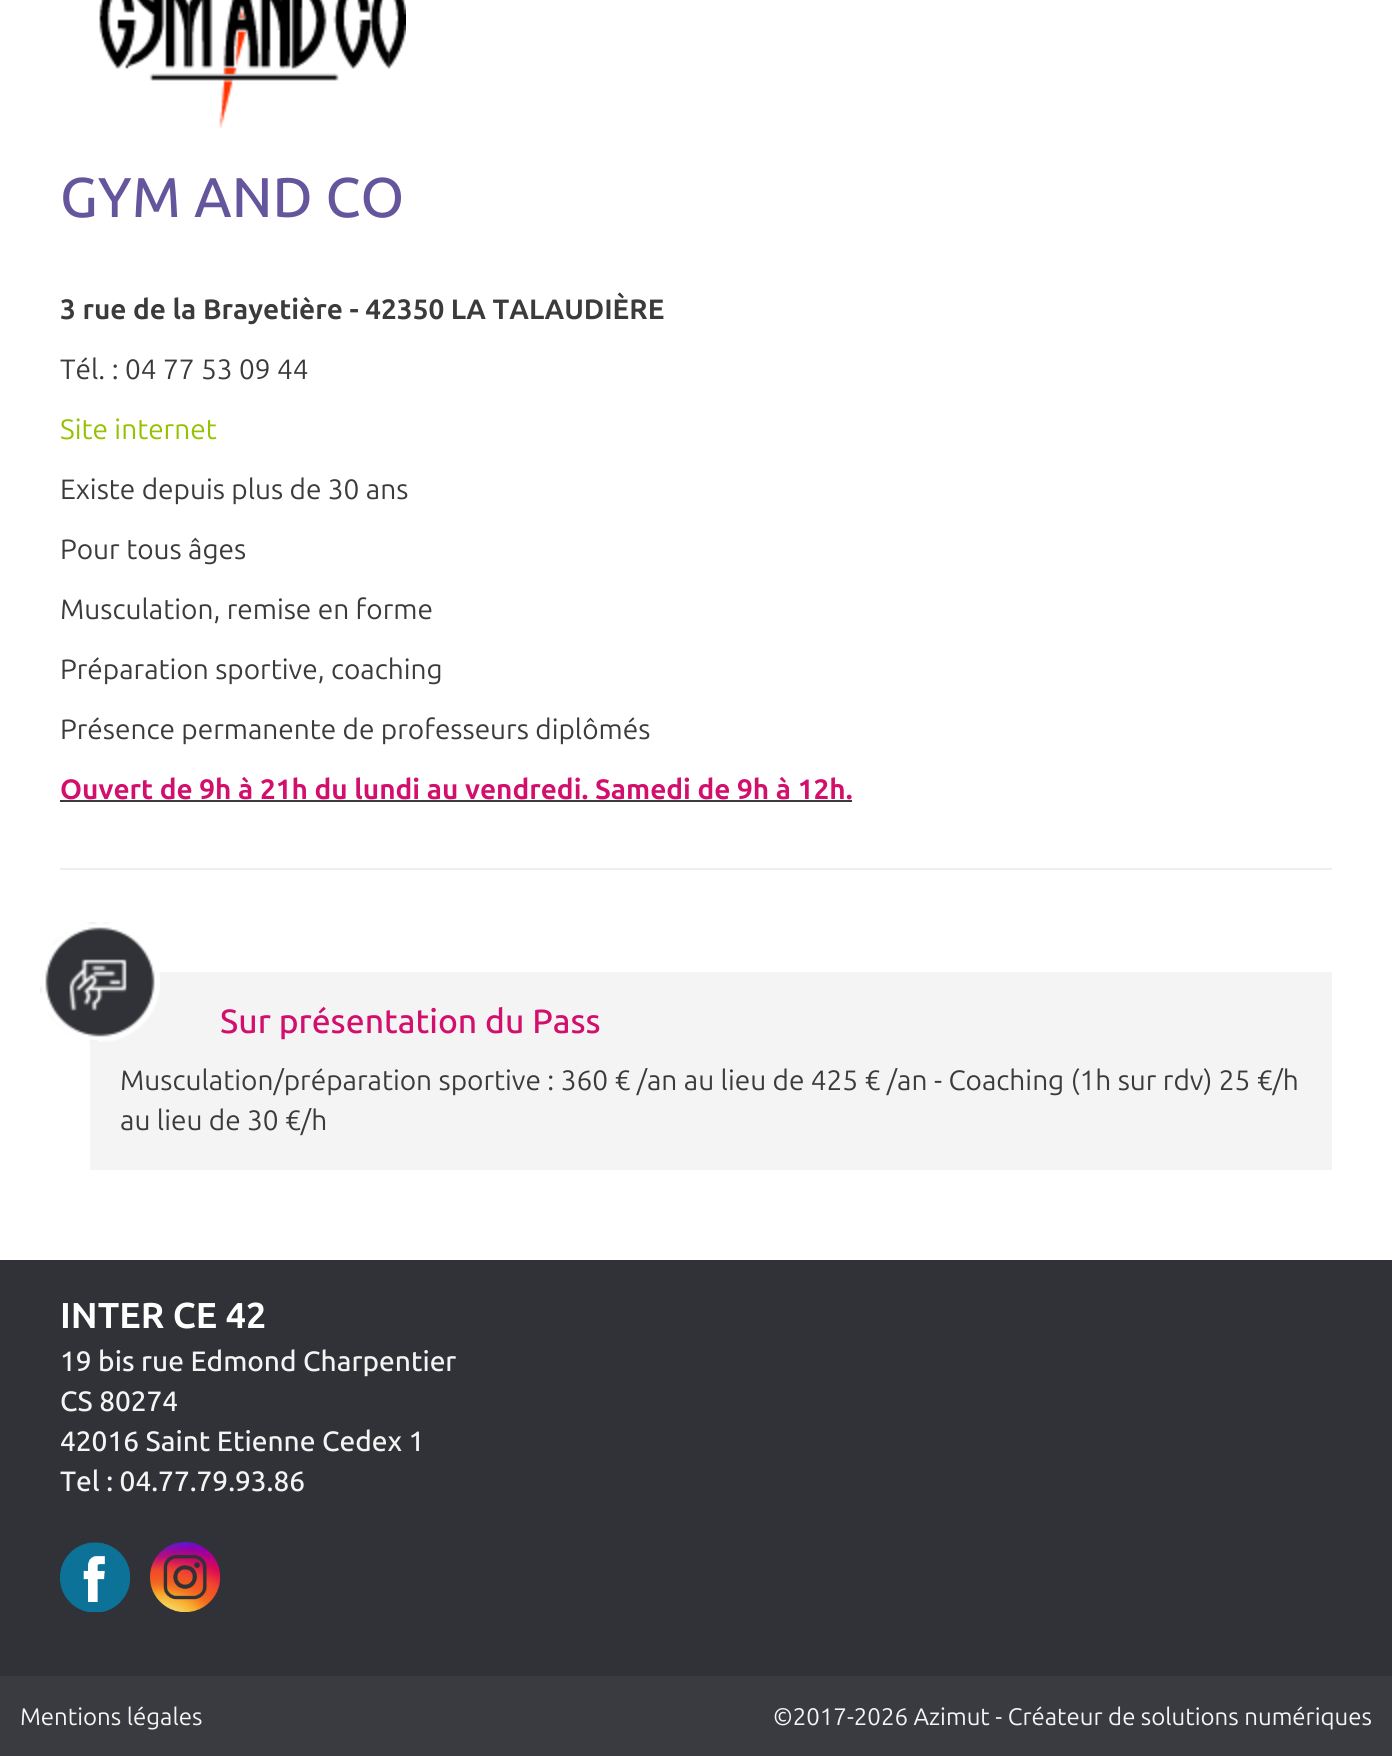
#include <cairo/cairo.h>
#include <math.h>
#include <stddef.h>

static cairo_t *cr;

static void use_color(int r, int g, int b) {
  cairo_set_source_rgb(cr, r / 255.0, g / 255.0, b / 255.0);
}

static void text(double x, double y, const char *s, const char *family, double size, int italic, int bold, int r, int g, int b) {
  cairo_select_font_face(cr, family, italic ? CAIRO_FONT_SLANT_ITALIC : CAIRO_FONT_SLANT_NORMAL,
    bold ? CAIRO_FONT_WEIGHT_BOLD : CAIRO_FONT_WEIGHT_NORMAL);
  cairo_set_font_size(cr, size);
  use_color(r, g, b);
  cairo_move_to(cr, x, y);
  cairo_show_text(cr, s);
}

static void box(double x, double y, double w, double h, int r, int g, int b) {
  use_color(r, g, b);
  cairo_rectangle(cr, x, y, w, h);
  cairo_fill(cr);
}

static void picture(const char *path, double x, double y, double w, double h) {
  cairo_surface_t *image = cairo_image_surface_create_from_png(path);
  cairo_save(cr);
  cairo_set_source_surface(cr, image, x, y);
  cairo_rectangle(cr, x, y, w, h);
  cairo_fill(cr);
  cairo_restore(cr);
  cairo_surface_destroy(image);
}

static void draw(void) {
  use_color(255, 255, 255);
  cairo_paint(cr);
  picture("img_01.png", 99, 0, 307, 128);
  box(60, 800, 792, 2, 59, 59, 59);
  box(60, 868, 1272, 2, 238, 238, 238);
  box(90, 972, 1242, 198, 244, 244, 244);
  picture("img_02.png", 40, 922, 120, 120);
  box(0, 1260, 1392, 416, 49, 50, 55);
  picture("img_03.png", 60, 1542, 70, 70);
  picture("img_04.png", 150, 1542, 70, 70);
  box(0, 1676, 1392, 80, 58, 59, 64);
  text(60, 217, "GYM AND CO", "Ubuntu Medium", 56, 0, 0, 100, 85, 157);
  text(60, 319, "3 rue de la Brayetière - 42350 LA TALAUDIÈRE", "Ubuntu", 28, 0, 1, 59, 59, 59);
  text(60, 379, "Tél. : 04 77 53 09 44", "Ubuntu", 28, 0, 0, 59, 59, 59);
  text(60, 439, "Site internet", "Ubuntu", 28, 0, 0, 150, 193, 0);
  text(60, 499, "Existe depuis plus de 30 ans", "Ubuntu", 28, 0, 0, 59, 59, 59);
  text(60, 559, "Pour tous âges", "Ubuntu", 28, 0, 0, 59, 59, 59);
  text(60, 619, "Musculation, remise en forme", "Ubuntu", 28, 0, 0, 59, 59, 59);
  text(60, 679, "Préparation sportive, coaching", "Ubuntu", 28, 0, 0, 59, 59, 59);
  text(60, 739, "Présence permanente de professeurs diplômés", "Ubuntu", 28, 0, 0, 59, 59, 59);
  text(60, 799, "Ouvert de 9h à 21h du lundi au vendredi. Samedi de 9h à 12h.", "Ubuntu", 28, 0, 1, 210, 15, 109);
  text(220, 1033, "Sur présentation du Pass", "Ubuntu Medium", 33.6, 0, 0, 210, 15, 109);
  text(120, 1090, "Musculation/préparation sportive : 360 € /an au lieu de 425 € /an - Coaching (1h sur rdv) 25 €/h", "Ubuntu", 28, 0, 0, 59, 59, 59);
  text(120, 1130, "au lieu de 30 €/h", "Ubuntu", 28, 0, 0, 59, 59, 59);
  text(60, 1328, "INTER CE 42", "Ubuntu", 36, 0, 1, 255, 255, 255);
  text(60, 1371, "19 bis rue Edmond Charpentier", "Ubuntu Medium", 28, 0, 0, 244, 244, 244);
  text(60, 1411, "CS 80274", "Ubuntu Medium", 28, 0, 0, 244, 244, 244);
  text(60, 1451, "42016 Saint Etienne Cedex 1", "Ubuntu Medium", 28, 0, 0, 244, 244, 244);
  text(60, 1491, "Tel : 04.77.79.93.86", "Ubuntu Medium", 28, 0, 0, 244, 244, 244);
  text(20, 1725, "Mentions légales", "Ubuntu", 24, 0, 0, 244, 244, 244);
  text(773, 1725, "©2017-2026 Azimut - Créateur de solutions numériques", "Ubuntu", 24, 0, 0, 244, 244, 244);
}

int main(void) {
  cairo_surface_t *surface = cairo_image_surface_create(CAIRO_FORMAT_RGB24, 1392, 1756);
  cr = cairo_create(surface);
  cairo_font_options_t *options = cairo_font_options_create();
  cairo_font_options_set_hint_metrics(options, CAIRO_HINT_METRICS_OFF);
  cairo_font_options_set_hint_style(options, CAIRO_HINT_STYLE_NONE);
  cairo_set_font_options(cr, options);
  cairo_set_miter_limit(cr, 4);
  draw();
  cairo_surface_write_to_png(surface, "out.png");
  cairo_font_options_destroy(options);
  cairo_destroy(cr);
  cairo_surface_destroy(surface);
  return 0;
}
